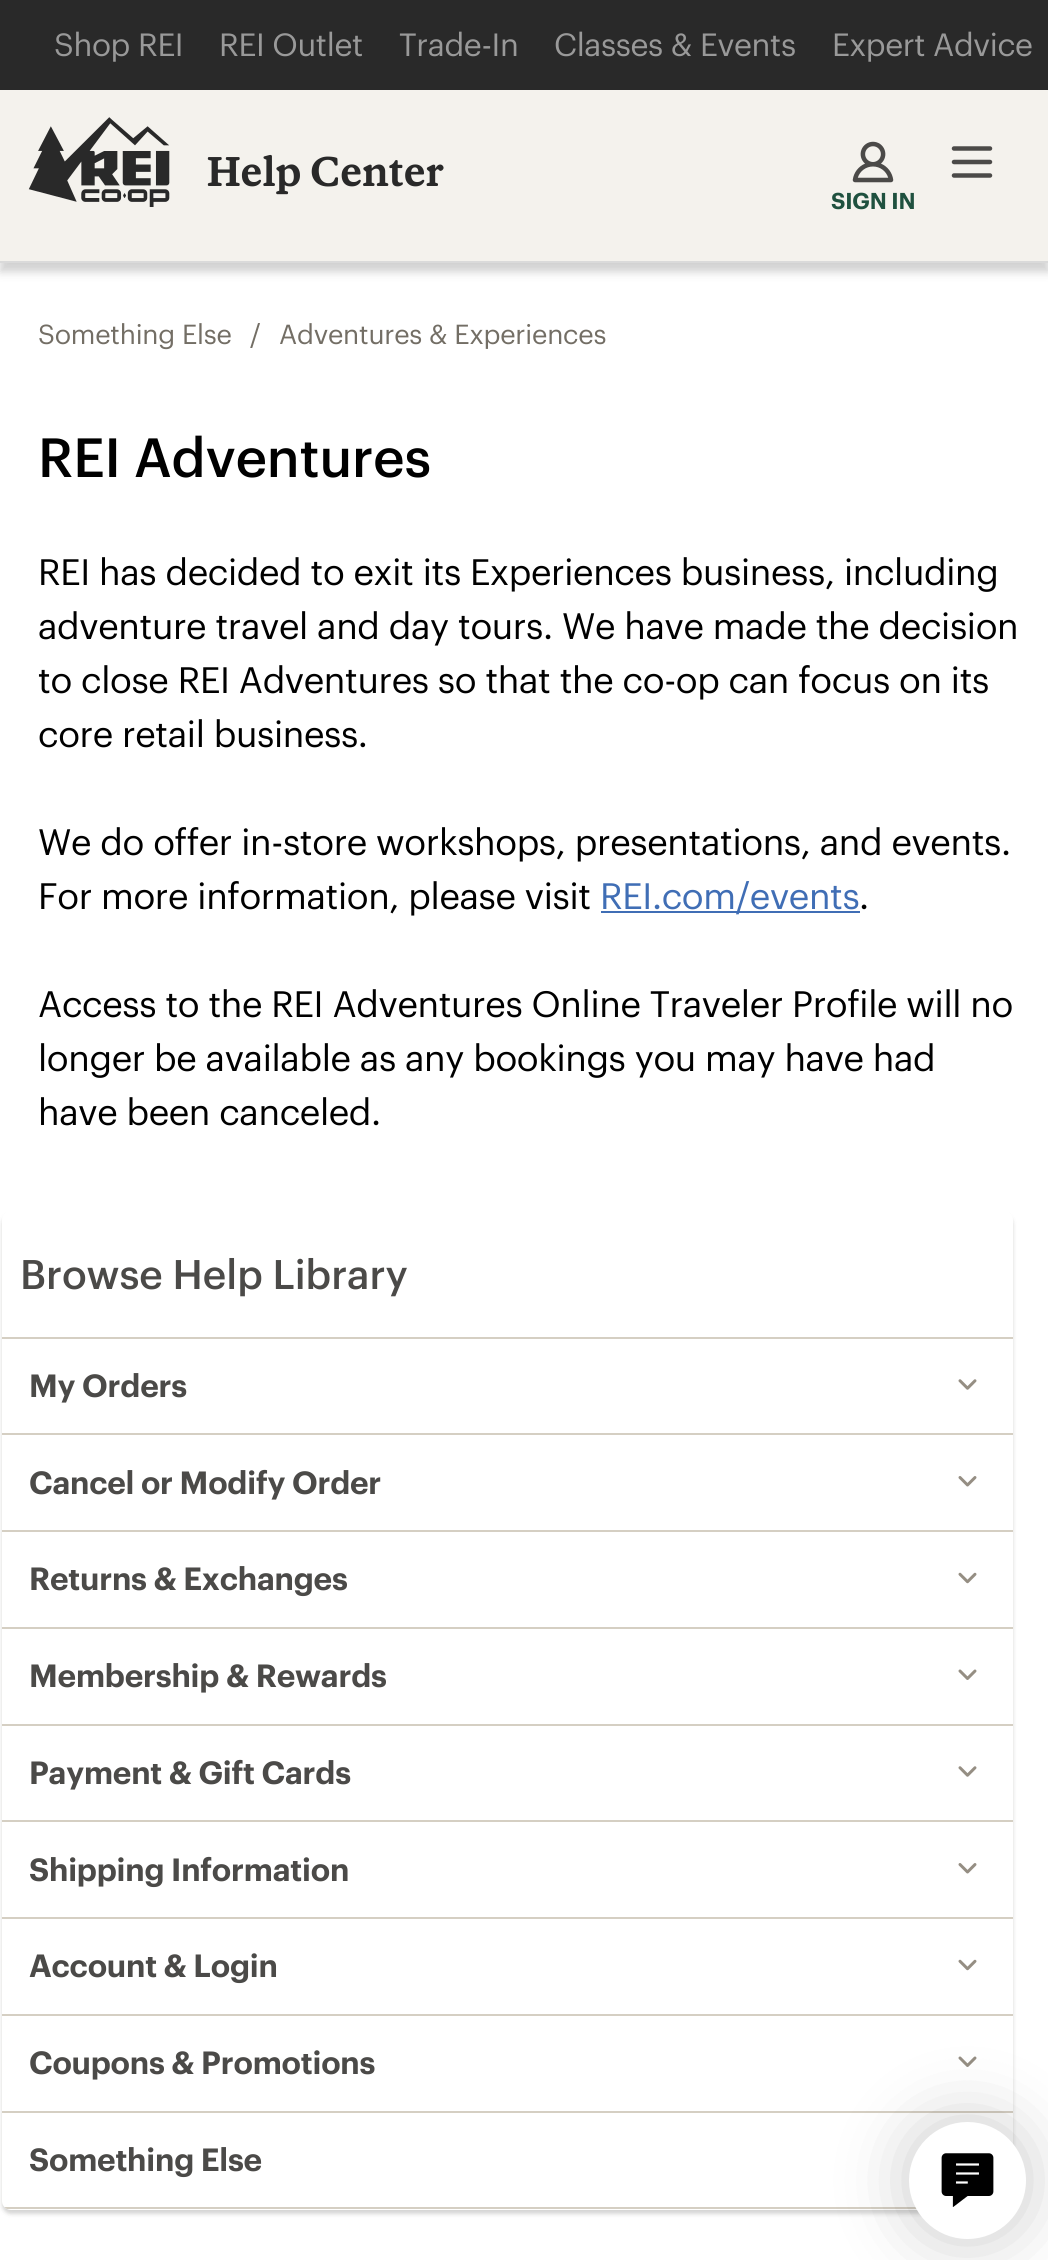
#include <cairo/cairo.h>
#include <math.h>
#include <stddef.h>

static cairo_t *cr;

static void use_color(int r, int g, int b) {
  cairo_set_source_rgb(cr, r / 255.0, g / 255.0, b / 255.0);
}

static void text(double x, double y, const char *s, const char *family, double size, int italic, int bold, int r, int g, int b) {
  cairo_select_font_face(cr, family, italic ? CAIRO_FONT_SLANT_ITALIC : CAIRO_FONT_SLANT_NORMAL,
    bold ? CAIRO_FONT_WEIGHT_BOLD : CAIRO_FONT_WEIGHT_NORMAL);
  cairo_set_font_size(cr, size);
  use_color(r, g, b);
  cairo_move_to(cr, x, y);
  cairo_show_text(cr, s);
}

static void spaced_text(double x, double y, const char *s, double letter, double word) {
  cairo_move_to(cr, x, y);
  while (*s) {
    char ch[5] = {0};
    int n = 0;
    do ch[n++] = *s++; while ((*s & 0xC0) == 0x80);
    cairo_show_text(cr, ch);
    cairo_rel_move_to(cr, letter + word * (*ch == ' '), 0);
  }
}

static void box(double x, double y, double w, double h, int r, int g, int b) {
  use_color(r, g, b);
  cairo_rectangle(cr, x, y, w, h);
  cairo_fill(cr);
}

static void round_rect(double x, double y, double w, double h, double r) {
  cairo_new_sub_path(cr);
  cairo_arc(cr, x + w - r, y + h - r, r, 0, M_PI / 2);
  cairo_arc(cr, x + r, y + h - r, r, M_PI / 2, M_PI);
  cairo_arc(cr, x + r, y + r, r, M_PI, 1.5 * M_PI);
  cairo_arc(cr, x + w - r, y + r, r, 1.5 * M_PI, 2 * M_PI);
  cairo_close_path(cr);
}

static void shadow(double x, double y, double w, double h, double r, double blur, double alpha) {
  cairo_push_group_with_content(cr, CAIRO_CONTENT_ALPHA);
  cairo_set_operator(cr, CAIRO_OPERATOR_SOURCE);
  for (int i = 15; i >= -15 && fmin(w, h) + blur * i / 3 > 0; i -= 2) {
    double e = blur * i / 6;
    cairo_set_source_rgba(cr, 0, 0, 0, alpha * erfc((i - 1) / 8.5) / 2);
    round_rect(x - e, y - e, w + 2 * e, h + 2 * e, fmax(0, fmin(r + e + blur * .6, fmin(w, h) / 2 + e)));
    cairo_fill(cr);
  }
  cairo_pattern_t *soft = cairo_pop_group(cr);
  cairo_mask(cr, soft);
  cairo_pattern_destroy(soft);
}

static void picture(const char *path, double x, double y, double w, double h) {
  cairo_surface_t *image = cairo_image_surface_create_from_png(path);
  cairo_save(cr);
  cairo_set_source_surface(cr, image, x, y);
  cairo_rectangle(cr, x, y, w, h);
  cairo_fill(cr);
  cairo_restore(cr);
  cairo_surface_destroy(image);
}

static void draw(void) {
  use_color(255, 255, 255);
  cairo_paint(cr);
  box(0, 0, 1048, 90, 41, 41, 41);
  use_color(26, 26, 26);
  shadow(0, 99, 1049, 173, 0, 4.5, 0.2);
  box(0, 90, 1048, 171, 244, 242, 237);
  box(0, 261, 1048, 2, 218, 218, 218);
  picture("img_01.png", 28, 117, 142, 90);
  picture("img_02.png", 951, 146, 42, 32);
  picture("img_03.png", 852, 141, 42, 42);
  box(601, 911, 259, 2, 64, 110, 181);
  use_color(46, 46, 43);
  shadow(2, 1215, 1011, 999, 9, 2, 0.2);
  use_color(255, 255, 255);
  round_rect(2, 1211, 1011, 999, 9);
  cairo_fill(cr);
  box(2, 1337, 1011, 2, 213, 207, 195);
  box(2, 1433, 1011, 2, 213, 207, 195);
  picture("img_04.png", 958, 1379, 19, 11);
  box(2, 1530, 1011, 2, 213, 207, 195);
  picture("img_05.png", 958, 1476, 19, 11);
  box(2, 1627, 1011, 2, 213, 207, 195);
  picture("img_06.png", 958, 1572, 19, 12);
  box(2, 1724, 1011, 2, 213, 207, 195);
  picture("img_07.png", 958, 1669, 19, 11);
  box(2, 1820, 1011, 2, 213, 207, 195);
  picture("img_04.png", 958, 1766, 19, 11);
  box(2, 1917, 1011, 2, 213, 207, 195);
  picture("img_05.png", 958, 1863, 19, 11);
  box(2, 2014, 1011, 2, 213, 207, 195);
  picture("img_06.png", 958, 1959, 19, 12);
  box(2, 2111, 1011, 2, 213, 207, 195);
  picture("img_07.png", 958, 2056, 19, 11);
  cairo_save(cr);
  round_rect(2, 1211, 1011, 999, 9);
  cairo_clip(cr);
  box(2, 2207, 915, 2, 213, 207, 195);
  cairo_restore(cr);
  use_color(0, 0, 0);
  shadow(907, 2120, 121, 121, 60.5, 34, 0.2);
  use_color(255, 255, 255);
  cairo_arc(cr, 967.5, 2180.5, 57.5, 0, 2 * M_PI);
  cairo_fill_preserve(cr);
  cairo_stroke(cr);
  picture("img_08.png", 941, 2153, 53, 54);
  cairo_select_font_face(cr, "Graphik", CAIRO_FONT_SLANT_NORMAL, CAIRO_FONT_WEIGHT_NORMAL);
  cairo_set_font_size(cr, 31.5);
  use_color(153, 153, 153);
  spaced_text(54, 56, "Shop REI", -0.35, 0);
  spaced_text(219, 56, "REI Outlet", -0.35, 0);
  spaced_text(399, 56, "Trade-In", -0.35, 0);
  spaced_text(554, 56, "Classes & Events", -0.35, 0);
  spaced_text(832, 56, "Expert Advice", -0.35, 0);
  cairo_select_font_face(cr, "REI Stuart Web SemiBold", CAIRO_FONT_SLANT_NORMAL, CAIRO_FONT_WEIGHT_NORMAL);
  cairo_set_font_size(cr, 40.5);
  use_color(41, 41, 41);
  spaced_text(207, 186, "Help Center", 0.25, 0);
  cairo_select_font_face(cr, "Graphik SemiBold", CAIRO_FONT_SLANT_NORMAL, CAIRO_FONT_WEIGHT_NORMAL);
  cairo_set_font_size(cr, 22.5);
  use_color(31, 81, 63);
  spaced_text(831, 209, "SIGN IN", -0.2, 0);
  cairo_select_font_face(cr, "Graphik", CAIRO_FONT_SLANT_NORMAL, CAIRO_FONT_WEIGHT_NORMAL);
  cairo_set_font_size(cr, 27);
  use_color(115, 110, 101);
  spaced_text(38, 344, "Something Else", -0.2, 0);
  spaced_text(250, 344, "/", -0.2, 0);
  spaced_text(279, 344, "Adventures & Experiences", -0.2, 0);
  text(38, 477, "REI Adventures", "Graphik Medium", 54, 0, 0, 0, 0, 0);
  cairo_select_font_face(cr, "Graphik", CAIRO_FONT_SLANT_NORMAL, CAIRO_FONT_WEIGHT_NORMAL);
  cairo_set_font_size(cr, 36);
  spaced_text(38, 585, "REI has decided to exit its Experiences business, including", -0.35, 0);
  spaced_text(38, 639, "adventure travel and day tours. We have made the decision", -0.35, 0);
  spaced_text(38, 693, "to close REI Adventures so that the co-op can focus on its", -0.35, 0);
  spaced_text(38, 747, "core retail business.", -0.35, 0);
  spaced_text(38, 855, "We do offer in-store workshops, presentations, and events.", -0.35, 0);
  spaced_text(38, 909, "For more information, please visit", -0.35, 0);
  use_color(64, 110, 181);
  spaced_text(600, 909, "REI.com/events", -0.35, 0);
  use_color(0, 0, 0);
  spaced_text(859, 909, ".", -0.35, 0);
  spaced_text(38, 1017, "Access to the REI Adventures Online Traveler Profile will no", -0.35, 0);
  spaced_text(38, 1071, "longer be available as any bookings you may have had", -0.35, 0);
  spaced_text(38, 1125, "have been canceled.", -0.35, 0);
  text(20, 1289, "Browse Help Library", "Graphik Medium", 40.5, 0, 0, 75, 74, 72);
  cairo_select_font_face(cr, "Graphik SemiBold", CAIRO_FONT_SLANT_NORMAL, CAIRO_FONT_WEIGHT_NORMAL);
  cairo_set_font_size(cr, 31.5);
  spaced_text(29, 1397, "My Orders", -0.2, 0);
  spaced_text(29, 1494, "Cancel or Modify Order", -0.2, 0);
  spaced_text(29, 1590, "Returns & Exchanges", -0.2, 0);
  spaced_text(29, 1687, "Membership & Rewards", -0.2, 0);
  spaced_text(29, 1784, "Payment & Gift Cards", -0.2, 0);
  spaced_text(29, 1881, "Shipping Information", -0.2, 0);
  spaced_text(29, 1977, "Account & Login", -0.2, 0);
  spaced_text(29, 2074, "Coupons & Promotions", -0.2, 0);
  spaced_text(29, 2171, "Something Else", -0.2, 0);
}

int main(void) {
  cairo_surface_t *surface = cairo_image_surface_create(CAIRO_FORMAT_RGB24, 1048, 2260);
  cr = cairo_create(surface);
  cairo_font_options_t *options = cairo_font_options_create();
  cairo_font_options_set_hint_metrics(options, CAIRO_HINT_METRICS_OFF);
  cairo_font_options_set_hint_style(options, CAIRO_HINT_STYLE_NONE);
  cairo_set_font_options(cr, options);
  cairo_set_miter_limit(cr, 4);
  draw();
  cairo_surface_write_to_png(surface, "out.png");
  cairo_font_options_destroy(options);
  cairo_destroy(cr);
  cairo_surface_destroy(surface);
  return 0;
}
